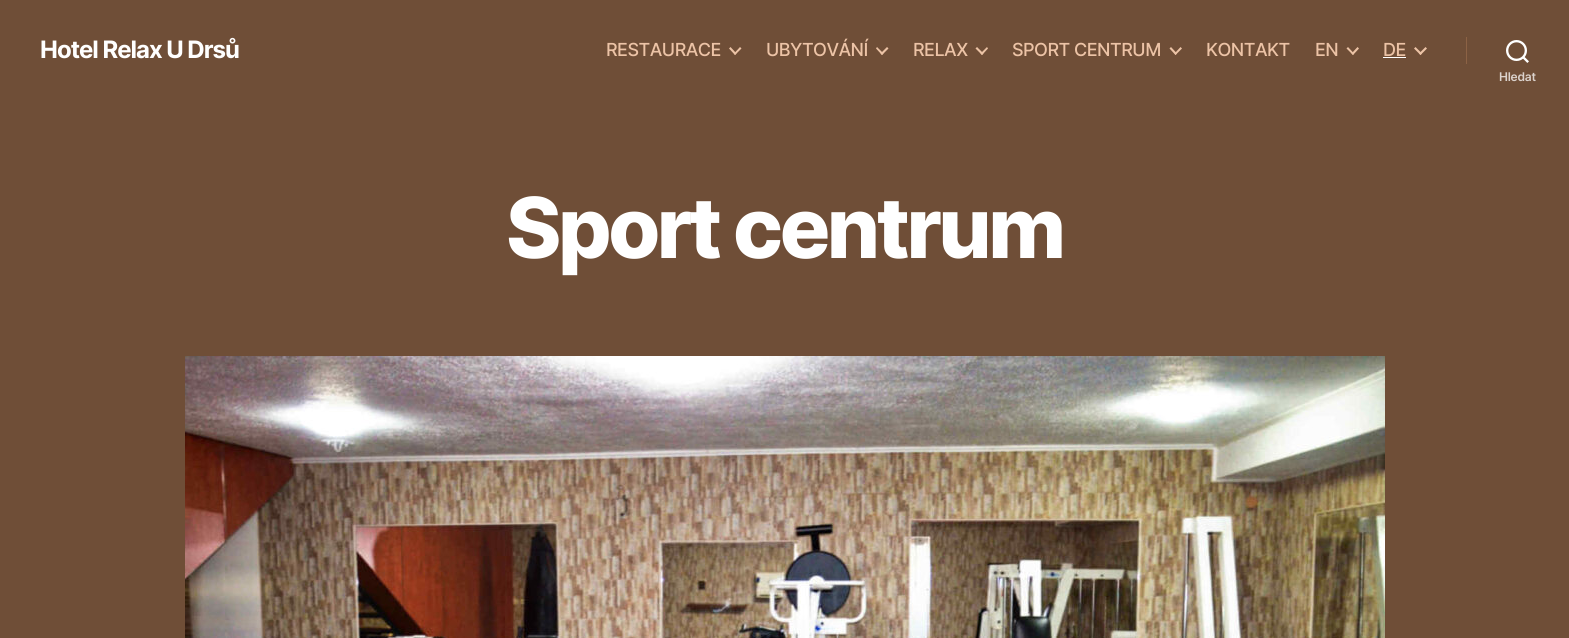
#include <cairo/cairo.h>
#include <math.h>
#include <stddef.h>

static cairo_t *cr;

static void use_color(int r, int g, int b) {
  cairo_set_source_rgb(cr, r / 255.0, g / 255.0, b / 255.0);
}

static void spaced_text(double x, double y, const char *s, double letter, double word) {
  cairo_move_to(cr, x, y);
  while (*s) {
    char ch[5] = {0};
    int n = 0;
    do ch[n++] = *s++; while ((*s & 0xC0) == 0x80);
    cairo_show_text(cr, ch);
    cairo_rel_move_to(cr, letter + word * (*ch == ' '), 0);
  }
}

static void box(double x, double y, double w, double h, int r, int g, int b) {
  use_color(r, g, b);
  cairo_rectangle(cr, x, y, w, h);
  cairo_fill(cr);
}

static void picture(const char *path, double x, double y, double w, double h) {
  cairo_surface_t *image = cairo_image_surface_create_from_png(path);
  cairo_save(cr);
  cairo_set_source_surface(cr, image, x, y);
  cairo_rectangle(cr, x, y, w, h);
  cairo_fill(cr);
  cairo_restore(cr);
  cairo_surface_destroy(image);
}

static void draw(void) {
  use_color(111, 78, 55);
  cairo_paint(cr);
  use_color(236, 195, 166);
  cairo_new_path(cr);
  cairo_move_to(cr, 729, 48.5);
  cairo_line_to(cr, 730.5, 47);
  cairo_line_to(cr, 736.5, 53.5);
  cairo_line_to(cr, 735, 55);
  cairo_close_path(cr);
  cairo_fill(cr);
  cairo_new_path(cr);
  cairo_move_to(cr, 734, 53.5);
  cairo_line_to(cr, 740, 47);
  cairo_line_to(cr, 741.5, 48.5);
  cairo_line_to(cr, 735, 55);
  cairo_close_path(cr);
  cairo_fill(cr);
  cairo_new_path(cr);
  cairo_move_to(cr, 876, 48.5);
  cairo_line_to(cr, 877, 47);
  cairo_line_to(cr, 883.5, 53.5);
  cairo_line_to(cr, 882, 55);
  cairo_close_path(cr);
  cairo_fill(cr);
  cairo_new_path(cr);
  cairo_move_to(cr, 880.5, 53.5);
  cairo_line_to(cr, 887, 47);
  cairo_line_to(cr, 888.5, 48.5);
  cairo_line_to(cr, 882, 55);
  cairo_close_path(cr);
  cairo_fill(cr);
  cairo_new_path(cr);
  cairo_move_to(cr, 975.5, 48.5);
  cairo_line_to(cr, 977, 47);
  cairo_line_to(cr, 983.5, 53.5);
  cairo_line_to(cr, 982, 55);
  cairo_close_path(cr);
  cairo_fill(cr);
  cairo_new_path(cr);
  cairo_move_to(cr, 980.5, 53.5);
  cairo_line_to(cr, 987, 47);
  cairo_line_to(cr, 988, 48.5);
  cairo_line_to(cr, 982, 55);
  cairo_close_path(cr);
  cairo_fill(cr);
  cairo_new_path(cr);
  cairo_move_to(cr, 1169.5, 48.5);
  cairo_line_to(cr, 1171, 47);
  cairo_line_to(cr, 1177, 53.5);
  cairo_line_to(cr, 1175.5, 55);
  cairo_close_path(cr);
  cairo_fill(cr);
  cairo_new_path(cr);
  cairo_move_to(cr, 1174.5, 53.5);
  cairo_line_to(cr, 1180.5, 47);
  cairo_line_to(cr, 1182, 48.5);
  cairo_line_to(cr, 1175.5, 55);
  cairo_close_path(cr);
  cairo_fill(cr);
  cairo_new_path(cr);
  cairo_move_to(cr, 1346.5, 48.5);
  cairo_line_to(cr, 1348, 47);
  cairo_line_to(cr, 1354, 53.5);
  cairo_line_to(cr, 1353, 55);
  cairo_close_path(cr);
  cairo_fill(cr);
  cairo_new_path(cr);
  cairo_move_to(cr, 1351.5, 53.5);
  cairo_line_to(cr, 1357.5, 47);
  cairo_line_to(cr, 1359, 48.5);
  cairo_line_to(cr, 1353, 55);
  cairo_close_path(cr);
  cairo_fill(cr);
  box(1383, 57, 23, 1, 255, 255, 255);
  use_color(236, 195, 166);
  cairo_new_path(cr);
  cairo_move_to(cr, 1414, 48.5);
  cairo_line_to(cr, 1415.5, 47);
  cairo_line_to(cr, 1422, 53.5);
  cairo_line_to(cr, 1420.5, 55);
  cairo_close_path(cr);
  cairo_fill(cr);
  cairo_new_path(cr);
  cairo_move_to(cr, 1419, 53.5);
  cairo_line_to(cr, 1425.5, 47);
  cairo_line_to(cr, 1427, 48.5);
  cairo_line_to(cr, 1420.5, 55);
  cairo_close_path(cr);
  cairo_fill(cr);
  box(1466, 37, 1, 27, 140, 98, 69);
  picture("img_01.png", 1506, 40, 23, 23);
  picture("img_02.png", 185, 356, 1200, 282);
  cairo_select_font_face(cr, "Inter", CAIRO_FONT_SLANT_NORMAL, CAIRO_FONT_WEIGHT_BOLD);
  cairo_set_font_size(cr, 24);
  use_color(255, 255, 255);
  spaced_text(40, 58, "Hotel Relax U Drsů", -1, 0);
  cairo_select_font_face(cr, "Inter Medium", CAIRO_FONT_SLANT_NORMAL, CAIRO_FONT_WEIGHT_NORMAL);
  cairo_set_font_size(cr, 18);
  use_color(236, 195, 166);
  spaced_text(606, 56, "RESTAURACE", -0.5, 0);
  spaced_text(766, 56, "UBYTOVÁNÍ", -0.5, 0);
  spaced_text(913, 56, "RELAX", -0.5, 0);
  spaced_text(1012, 56, "SPORT CENTRUM", -0.5, 0);
  spaced_text(1206, 56, "KONTAKT", -0.5, 0);
  spaced_text(1315, 56, "EN", -0.5, 0);
  spaced_text(1383, 56, "DE", -0.5, 0);
  cairo_select_font_face(cr, "Inter SemiBold", CAIRO_FONT_SLANT_NORMAL, CAIRO_FONT_WEIGHT_NORMAL);
  cairo_set_font_size(cr, 12);
  use_color(219, 210, 204);
  spaced_text(1499, 81, "Hledat", -0.25, 0);
  cairo_select_font_face(cr, "Inter ExtraBold", CAIRO_FONT_SLANT_NORMAL, CAIRO_FONT_WEIGHT_NORMAL);
  cairo_set_font_size(cr, 84);
  use_color(255, 255, 255);
  spaced_text(506, 258, "Sport centrum", -3.5, 0);
}

int main(void) {
  cairo_surface_t *surface = cairo_image_surface_create(CAIRO_FORMAT_RGB24, 1569, 638);
  cr = cairo_create(surface);
  cairo_font_options_t *options = cairo_font_options_create();
  cairo_font_options_set_hint_metrics(options, CAIRO_HINT_METRICS_OFF);
  cairo_font_options_set_hint_style(options, CAIRO_HINT_STYLE_NONE);
  cairo_set_font_options(cr, options);
  cairo_set_miter_limit(cr, 4);
  draw();
  cairo_surface_write_to_png(surface, "out.png");
  cairo_font_options_destroy(options);
  cairo_destroy(cr);
  cairo_surface_destroy(surface);
  return 0;
}
